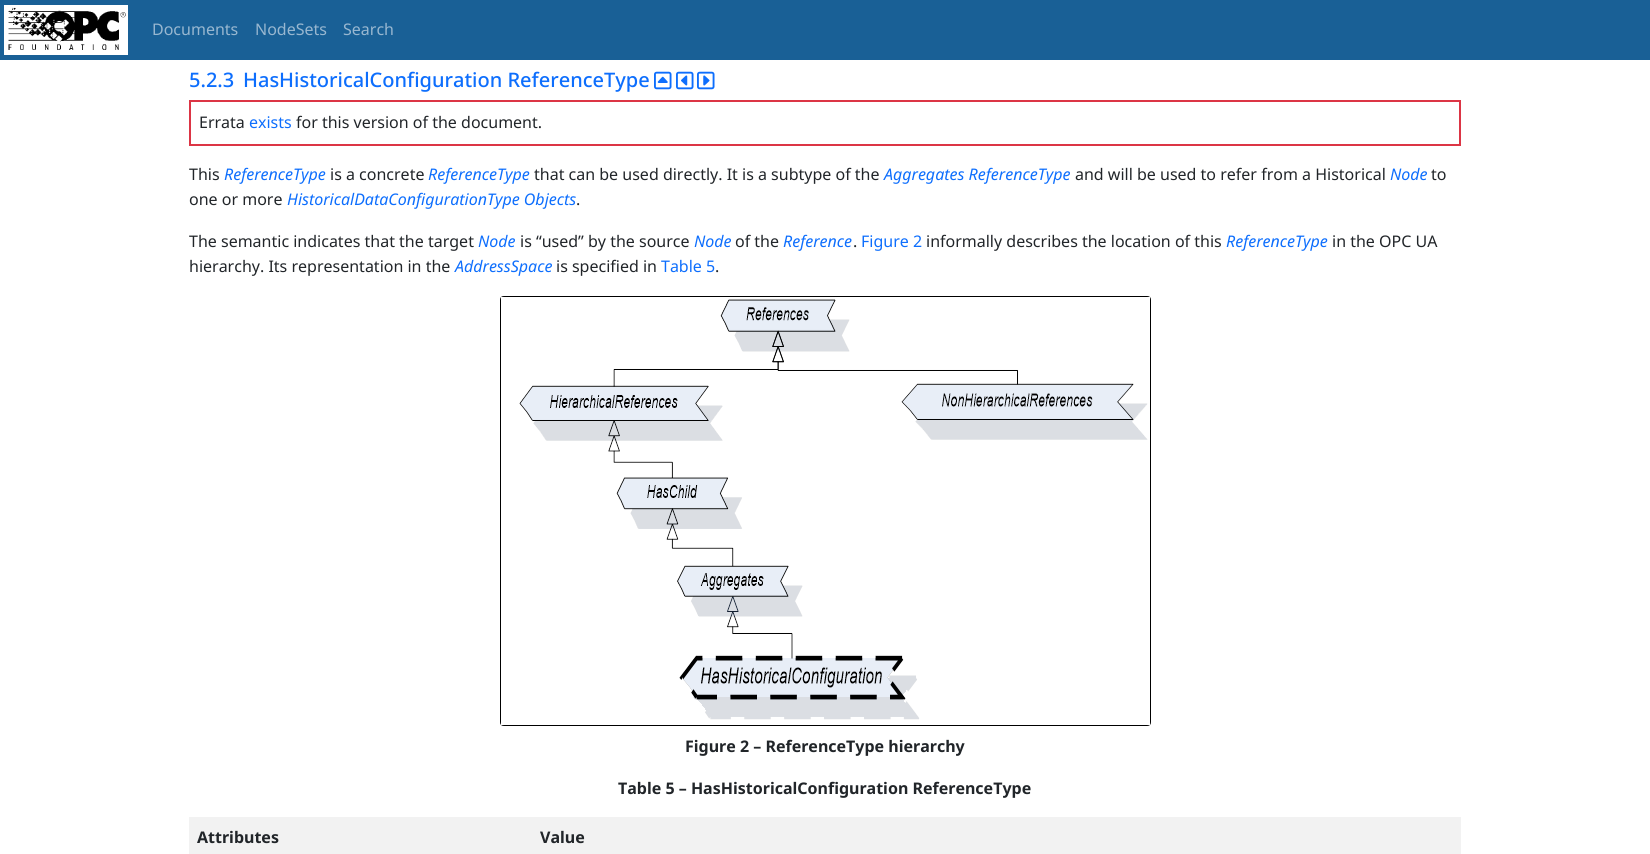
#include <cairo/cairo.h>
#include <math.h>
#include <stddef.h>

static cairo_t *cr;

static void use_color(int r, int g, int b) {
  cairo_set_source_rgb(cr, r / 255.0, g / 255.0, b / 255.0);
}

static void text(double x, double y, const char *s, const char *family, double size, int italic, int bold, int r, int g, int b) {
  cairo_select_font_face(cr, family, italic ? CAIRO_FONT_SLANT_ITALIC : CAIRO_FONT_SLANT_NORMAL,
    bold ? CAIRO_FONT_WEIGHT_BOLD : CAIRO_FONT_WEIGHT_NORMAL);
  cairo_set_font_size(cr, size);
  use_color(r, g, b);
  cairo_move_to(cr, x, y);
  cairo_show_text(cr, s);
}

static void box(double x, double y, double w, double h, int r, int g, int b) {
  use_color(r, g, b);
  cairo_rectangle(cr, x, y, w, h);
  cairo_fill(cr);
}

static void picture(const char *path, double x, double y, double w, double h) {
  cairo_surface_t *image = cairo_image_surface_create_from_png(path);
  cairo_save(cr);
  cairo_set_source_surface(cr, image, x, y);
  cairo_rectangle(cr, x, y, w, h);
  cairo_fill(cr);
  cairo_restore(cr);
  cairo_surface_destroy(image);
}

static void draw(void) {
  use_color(255, 255, 255);
  cairo_paint(cr);
  box(0, 0, 1650, 60, 25, 96, 150);
  picture("img_01.png", 4, 5, 124, 50);
  picture("img_02.png", 654, 71, 18, 19);
  picture("img_03.png", 676, 71, 18, 19);
  picture("img_04.png", 697, 71, 18, 19);
  cairo_rectangle(cr, 190, 101, 1270, 44);
  use_color(220, 53, 69);
  cairo_stroke(cr);
  picture("img_05.png", 500, 296, 651, 430);
  box(189, 817, 1272, 37, 242, 242, 242);
  text(152, 35, "Documents", "Noto Sans", 16, 0, 0, 152, 183, 208);
  text(255, 35, "NodeSets", "Noto Sans", 16, 0, 0, 152, 183, 208);
  text(343, 35, "Search", "Noto Sans", 16, 0, 0, 152, 183, 208);
  text(189, 87, "5.2.3", "Noto Sans Medium", 20, 0, 0, 13, 110, 253);
  text(243, 87, "HasHistoricalConfiguration ReferenceType", "Noto Sans Medium", 20, 0, 0, 13, 110, 253);
  text(199, 128, "Errata", "Noto Sans", 16, 0, 0, 33, 37, 41);
  text(249, 128, "exists", "Noto Sans", 16, 0, 0, 13, 110, 253);
  text(296, 128, "for this version of the document.", "Noto Sans", 16, 0, 0, 33, 37, 41);
  text(189, 180, "This", "Noto Sans", 16, 0, 0, 33, 37, 41);
  text(224, 180, "ReferenceType", "Noto Sans", 16, 1, 0, 13, 110, 253);
  text(330, 180, "is a concrete", "Noto Sans", 16, 0, 0, 33, 37, 41);
  text(428, 180, "ReferenceType", "Noto Sans", 16, 1, 0, 13, 110, 253);
  text(534, 180, "that can be used directly. It is a subtype of the", "Noto Sans", 16, 0, 0, 33, 37, 41);
  text(884, 180, "Aggregates ReferenceType", "Noto Sans", 16, 1, 0, 13, 110, 253);
  text(1075, 180, "and will be used to refer from a Historical", "Noto Sans", 16, 0, 0, 33, 37, 41);
  text(1390, 180, "Node", "Noto Sans", 16, 1, 0, 13, 110, 253);
  text(1431, 180, "to", "Noto Sans", 16, 0, 0, 33, 37, 41);
  text(189, 205, "one or more", "Noto Sans", 16, 0, 0, 33, 37, 41);
  text(287, 205, "HistoricalDataConfigurationType Objects", "Noto Sans", 16, 1, 0, 13, 110, 253);
  text(576, 205, ".", "Noto Sans", 16, 0, 0, 33, 37, 41);
  text(189, 247, "The semantic indicates that the target", "Noto Sans", 16, 0, 0, 33, 37, 41);
  text(478, 247, "Node", "Noto Sans", 16, 1, 0, 13, 110, 253);
  text(520, 247, "is “used” by the source", "Noto Sans", 16, 0, 0, 33, 37, 41);
  text(694, 247, "Node", "Noto Sans", 16, 1, 0, 13, 110, 253);
  text(735, 247, "of the", "Noto Sans", 16, 0, 0, 33, 37, 41);
  text(783, 247, "Reference", "Noto Sans", 16, 1, 0, 13, 110, 253);
  text(853, 247, ".", "Noto Sans", 16, 0, 0, 33, 37, 41);
  text(861, 247, "Figure 2", "Noto Sans", 16, 0, 0, 13, 110, 253);
  text(926, 247, "informally describes the location of this", "Noto Sans", 16, 0, 0, 33, 37, 41);
  text(1226, 247, "ReferenceType", "Noto Sans", 16, 1, 0, 13, 110, 253);
  text(1332, 247, "in the OPC UA", "Noto Sans", 16, 0, 0, 33, 37, 41);
  text(189, 272, "hierarchy. Its representation in the", "Noto Sans", 16, 0, 0, 33, 37, 41);
  text(455, 272, "AddressSpace", "Noto Sans", 16, 1, 0, 13, 110, 253);
  text(556, 272, "is specified in", "Noto Sans", 16, 0, 0, 33, 37, 41);
  text(661, 272, "Table 5", "Noto Sans", 16, 0, 0, 13, 110, 253);
  text(715, 272, ".", "Noto Sans", 16, 0, 0, 33, 37, 41);
  text(685, 752, "Figure 2 – ReferenceType hierarchy", "Noto Sans", 16, 0, 1, 33, 37, 41);
  text(618, 794, "Table 5 – HasHistoricalConfiguration ReferenceType", "Noto Sans", 16, 0, 1, 33, 37, 41);
  text(197, 843, "Attributes", "Noto Sans", 16, 0, 1, 33, 37, 41);
  text(540, 843, "Value", "Noto Sans", 16, 0, 1, 33, 37, 41);
}

int main(void) {
  cairo_surface_t *surface = cairo_image_surface_create(CAIRO_FORMAT_RGB24, 1650, 854);
  cr = cairo_create(surface);
  cairo_font_options_t *options = cairo_font_options_create();
  cairo_font_options_set_hint_metrics(options, CAIRO_HINT_METRICS_OFF);
  cairo_font_options_set_hint_style(options, CAIRO_HINT_STYLE_NONE);
  cairo_set_font_options(cr, options);
  cairo_set_miter_limit(cr, 4);
  draw();
  cairo_surface_write_to_png(surface, "out.png");
  cairo_font_options_destroy(options);
  cairo_destroy(cr);
  cairo_surface_destroy(surface);
  return 0;
}
